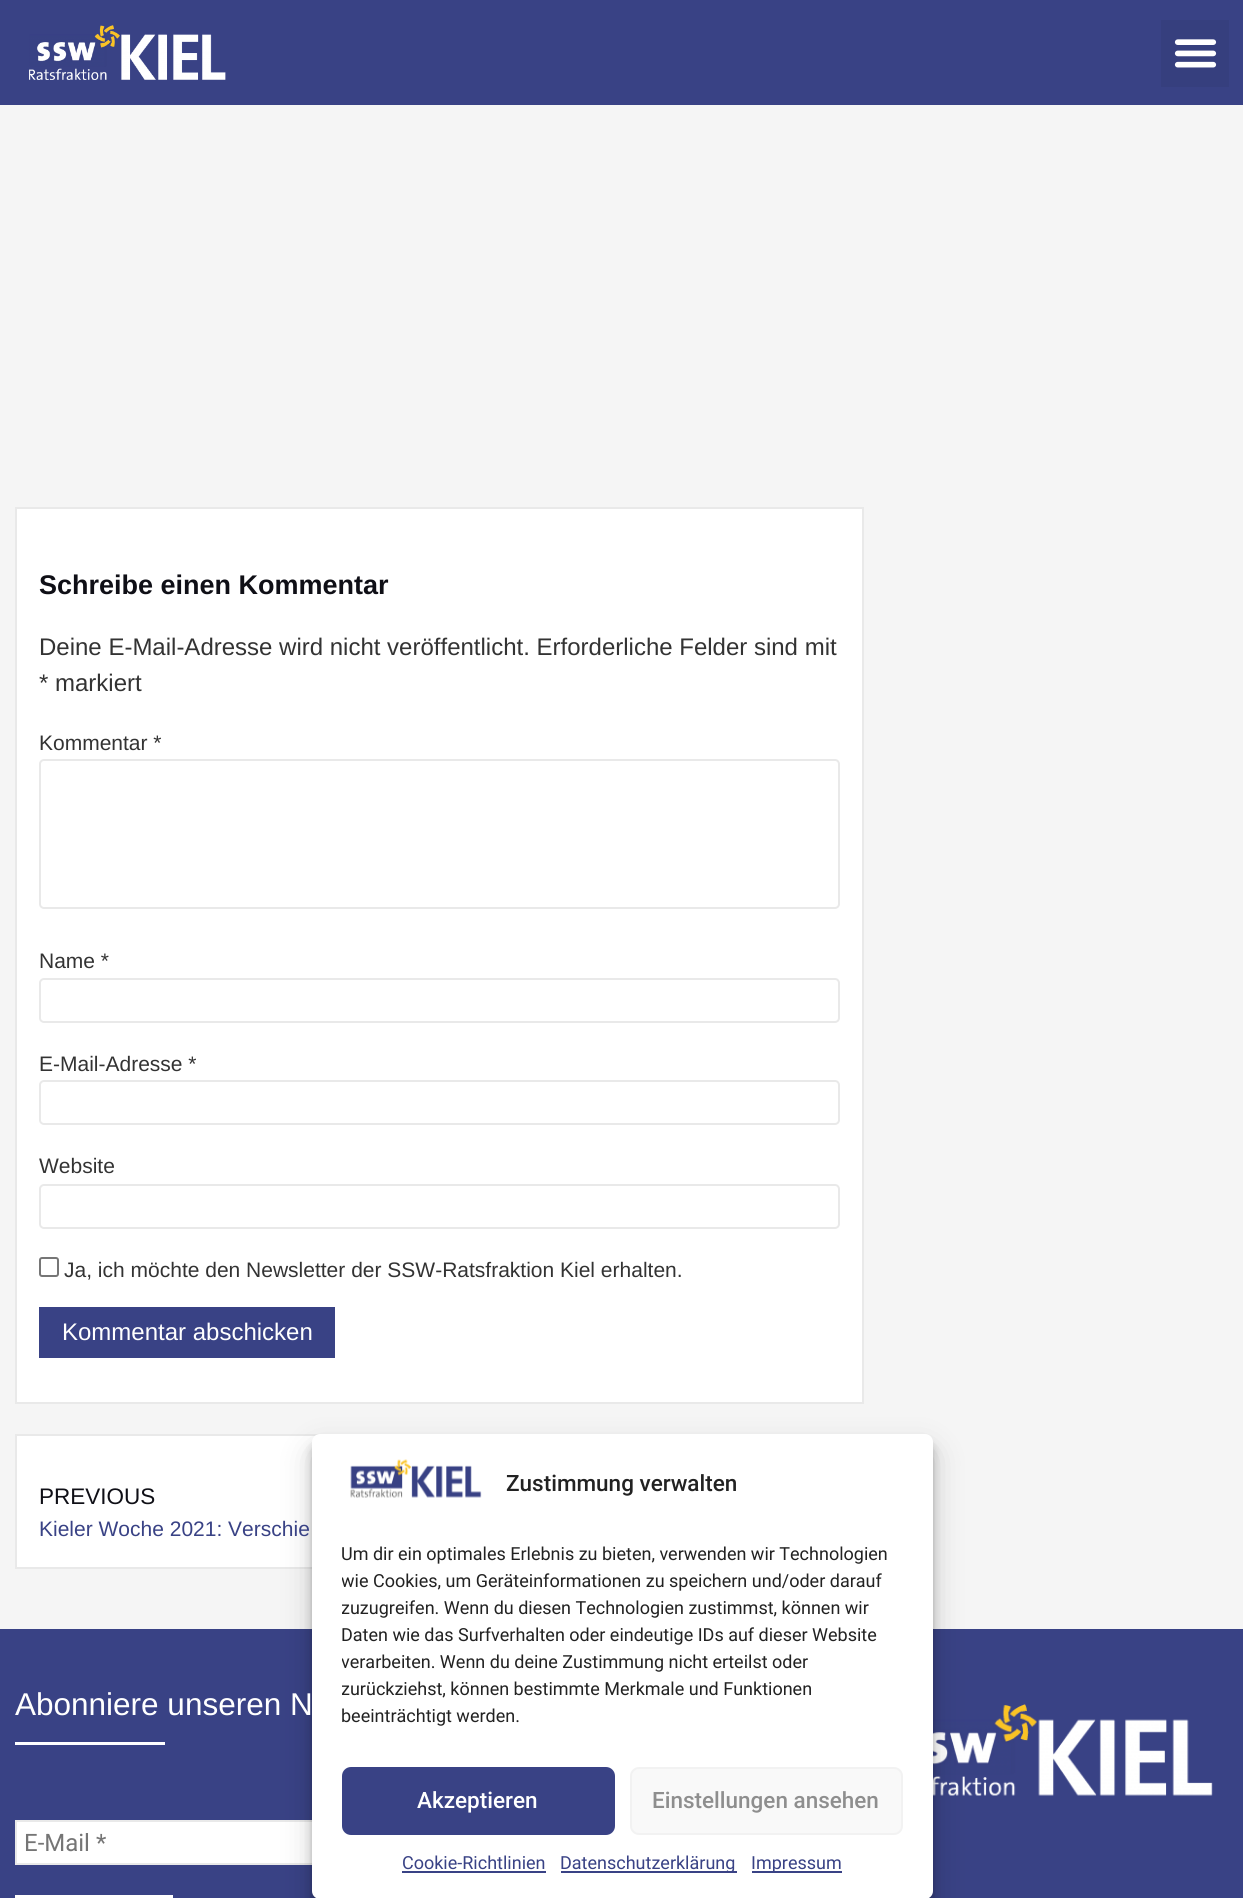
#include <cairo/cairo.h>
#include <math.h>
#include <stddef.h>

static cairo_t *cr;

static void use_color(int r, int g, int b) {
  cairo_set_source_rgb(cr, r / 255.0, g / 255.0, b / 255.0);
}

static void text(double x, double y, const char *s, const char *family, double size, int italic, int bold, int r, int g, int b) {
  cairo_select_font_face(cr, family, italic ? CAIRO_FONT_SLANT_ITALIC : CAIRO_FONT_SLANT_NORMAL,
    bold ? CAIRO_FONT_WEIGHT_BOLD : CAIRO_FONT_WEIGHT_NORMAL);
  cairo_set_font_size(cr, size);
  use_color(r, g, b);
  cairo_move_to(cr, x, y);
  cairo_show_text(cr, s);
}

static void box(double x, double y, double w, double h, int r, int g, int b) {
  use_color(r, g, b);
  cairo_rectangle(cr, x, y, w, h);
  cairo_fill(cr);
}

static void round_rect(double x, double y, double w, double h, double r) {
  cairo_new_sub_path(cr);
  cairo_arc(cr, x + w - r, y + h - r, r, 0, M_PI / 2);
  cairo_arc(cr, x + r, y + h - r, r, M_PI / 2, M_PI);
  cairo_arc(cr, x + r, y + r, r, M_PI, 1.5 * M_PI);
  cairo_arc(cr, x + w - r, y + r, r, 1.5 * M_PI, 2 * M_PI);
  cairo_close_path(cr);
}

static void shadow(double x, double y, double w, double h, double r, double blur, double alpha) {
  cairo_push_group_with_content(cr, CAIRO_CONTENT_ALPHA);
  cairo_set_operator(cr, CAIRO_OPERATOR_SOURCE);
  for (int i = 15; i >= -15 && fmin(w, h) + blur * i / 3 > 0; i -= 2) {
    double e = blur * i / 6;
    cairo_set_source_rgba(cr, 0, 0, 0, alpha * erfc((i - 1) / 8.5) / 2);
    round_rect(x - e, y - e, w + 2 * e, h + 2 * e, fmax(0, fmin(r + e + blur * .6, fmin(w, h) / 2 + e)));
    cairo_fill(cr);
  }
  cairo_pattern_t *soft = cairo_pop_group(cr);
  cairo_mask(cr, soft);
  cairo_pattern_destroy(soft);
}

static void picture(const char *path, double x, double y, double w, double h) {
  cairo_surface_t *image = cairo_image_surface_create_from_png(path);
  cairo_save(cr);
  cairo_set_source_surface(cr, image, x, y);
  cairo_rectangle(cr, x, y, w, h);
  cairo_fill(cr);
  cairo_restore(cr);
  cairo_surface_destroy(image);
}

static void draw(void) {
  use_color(245, 245, 245);
  cairo_paint(cr);
  box(0, 0, 1243, 105, 57, 66, 133);
  picture("img_01.png", 29, 25, 197, 55);
  box(1161, 20, 68, 67, 54, 63, 126);
  picture("img_02.png", 1174, 39, 43, 29);
  use_color(255, 255, 255);
  cairo_rectangle(cr, 16, 508, 847, 895);
  cairo_fill_preserve(cr);
  use_color(233, 233, 233);
  cairo_stroke(cr);
  round_rect(40, 760, 799, 148, 4);
  cairo_stroke(cr);
  round_rect(40, 979, 799, 43, 4);
  cairo_stroke(cr);
  round_rect(40, 1081, 799, 43, 4);
  cairo_stroke(cr);
  round_rect(40, 1185, 799, 43, 4);
  cairo_stroke(cr);
  round_rect(40, 1258, 18, 18, 2);
  use_color(118, 118, 118);
  cairo_stroke(cr);
  box(39, 1307, 296, 51, 57, 66, 133);
  box(17, 1436, 298, 131, 255, 255, 255);
  cairo_rectangle(cr, 16, 1435, 847, 133);
  use_color(233, 233, 233);
  cairo_stroke(cr);
  box(0, 1629, 1243, 269, 57, 66, 133);
  box(15, 1742, 150, 3, 255, 255, 255);
  box(17, 1822, 295, 41, 255, 255, 255);
  cairo_rectangle(cr, 16, 1821, 801, 43);
  use_color(233, 233, 233);
  cairo_stroke(cr);
  box(15, 1895, 158, 3, 255, 255, 255);
  picture("img_03.png", 933, 1704, 280, 92);
  use_color(0, 0, 0);
  shadow(312, 1443, 621, 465, 8, 4.5, 0.23);
  shadow(312, 1449, 621, 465, 8, 15, 0.19);
  use_color(255, 255, 255);
  round_rect(312, 1434, 621, 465, 8);
  cairo_fill(cr);
  picture("img_04.png", 350, 1459, 132, 39);
  use_color(57, 66, 133);
  round_rect(343, 1768, 271, 66, 8);
  cairo_fill_preserve(cr);
  cairo_stroke(cr);
  use_color(249, 249, 249);
  round_rect(631, 1768, 271, 66, 8);
  cairo_fill_preserve(cr);
  use_color(242, 242, 242);
  cairo_stroke(cr);
  box(402, 1871, 144, 2, 57, 66, 133);
  box(561, 1871, 176, 2, 57, 66, 133);
  box(752, 1871, 90, 2, 57, 66, 133);
  text(39, 594, "Schreibe einen Kommentar", "Liberation Sans", 27, 0, 1, 15, 15, 22);
  text(39, 655, "Deine E-Mail-Adresse wird nicht veröffentlicht. Erforderliche Felder sind mit", "Liberation Sans", 24, 0, 0, 51, 51, 51);
  text(39, 691, "* markiert", "Liberation Sans", 24, 0, 0, 51, 51, 51);
  text(39, 750, "Kommentar *", "Liberation Sans", 21, 0, 0, 51, 51, 51);
  text(39, 968, "Name *", "Liberation Sans", 21, 0, 0, 51, 51, 51);
  text(39, 1071, "E-Mail-Adresse *", "Liberation Sans", 21, 0, 0, 51, 51, 51);
  text(39, 1173, "Website", "Liberation Sans", 21, 0, 0, 51, 51, 51);
  text(64, 1277, "Ja, ich möchte den Newsletter der SSW-Ratsfraktion Kiel erhalten.", "Liberation Sans", 21, 0, 0, 51, 51, 51);
  text(62, 1340, "Kommentar abschicken", "Liberation Sans", 24, 0, 0, 255, 255, 255);
  text(39, 1504, "PREVIOUS", "Liberation Sans", 22.5, 0, 0, 15, 15, 22);
  text(39, 1536, "Kieler Woche 2021: Verschie", "Liberation Sans", 21, 0, 0, 57, 66, 133);
  text(15, 1715, "Abonniere unseren N", "Liberation Sans", 31.5, 0, 0, 255, 255, 255);
  text(24, 1851, "E-Mail *", "Roboto", 24, 0, 0, 117, 117, 117);
  text(506, 1491, "Zustimmung verwalten", "Roboto Medium", 22.5, 0, 0, 34, 34, 34);
  text(341, 1560, "Um dir ein optimales Erlebnis zu bieten, verwenden wir Technologien", "Roboto", 18, 0, 0, 34, 34, 34);
  cairo_save(cr);
  cairo_rectangle(cr, 342, 1541, 561, 196);
  cairo_clip(cr);
  text(341, 1587, "wie Cookies, um Geräteinformationen zu speichern und/oder darauf", "Roboto", 18, 0, 0, 34, 34, 34);
  text(341, 1614, "zuzugreifen. Wenn du diesen Technologien zustimmst, können wir", "Roboto", 18, 0, 0, 34, 34, 34);
  cairo_restore(cr);
  text(341, 1641, "Daten wie das Surfverhalten oder eindeutige IDs auf dieser Website", "Roboto", 18, 0, 0, 34, 34, 34);
  cairo_save(cr);
  cairo_rectangle(cr, 342, 1541, 561, 196);
  cairo_clip(cr);
  text(341, 1668, "verarbeiten. Wenn du deine Zustimmung nicht erteilst oder", "Roboto", 18, 0, 0, 34, 34, 34);
  text(341, 1695, "zurückziehst, können bestimmte Merkmale und Funktionen", "Roboto", 18, 0, 0, 34, 34, 34);
  cairo_restore(cr);
  text(341, 1722, "beeinträchtigt werden.", "Roboto", 18, 0, 0, 34, 34, 34);
  text(417, 1808, "Akzeptieren", "Roboto Medium", 22.5, 0, 0, 255, 255, 255);
  text(652, 1808, "Einstellungen ansehen", "Roboto Medium", 22.5, 0, 0, 142, 142, 142);
  text(402, 1869, "Cookie-Richtlinien", "Roboto", 18, 0, 0, 57, 66, 133);
  text(560, 1869, "Datenschutzerklärung", "Roboto", 18, 0, 0, 57, 66, 133);
  text(751, 1869, "Impressum", "Roboto", 18, 0, 0, 57, 66, 133);
}

int main(void) {
  cairo_surface_t *surface = cairo_image_surface_create(CAIRO_FORMAT_RGB24, 1243, 1898);
  cr = cairo_create(surface);
  cairo_font_options_t *options = cairo_font_options_create();
  cairo_font_options_set_hint_metrics(options, CAIRO_HINT_METRICS_OFF);
  cairo_font_options_set_hint_style(options, CAIRO_HINT_STYLE_NONE);
  cairo_set_font_options(cr, options);
  cairo_set_miter_limit(cr, 4);
  draw();
  cairo_surface_write_to_png(surface, "out.png");
  cairo_font_options_destroy(options);
  cairo_destroy(cr);
  cairo_surface_destroy(surface);
  return 0;
}
